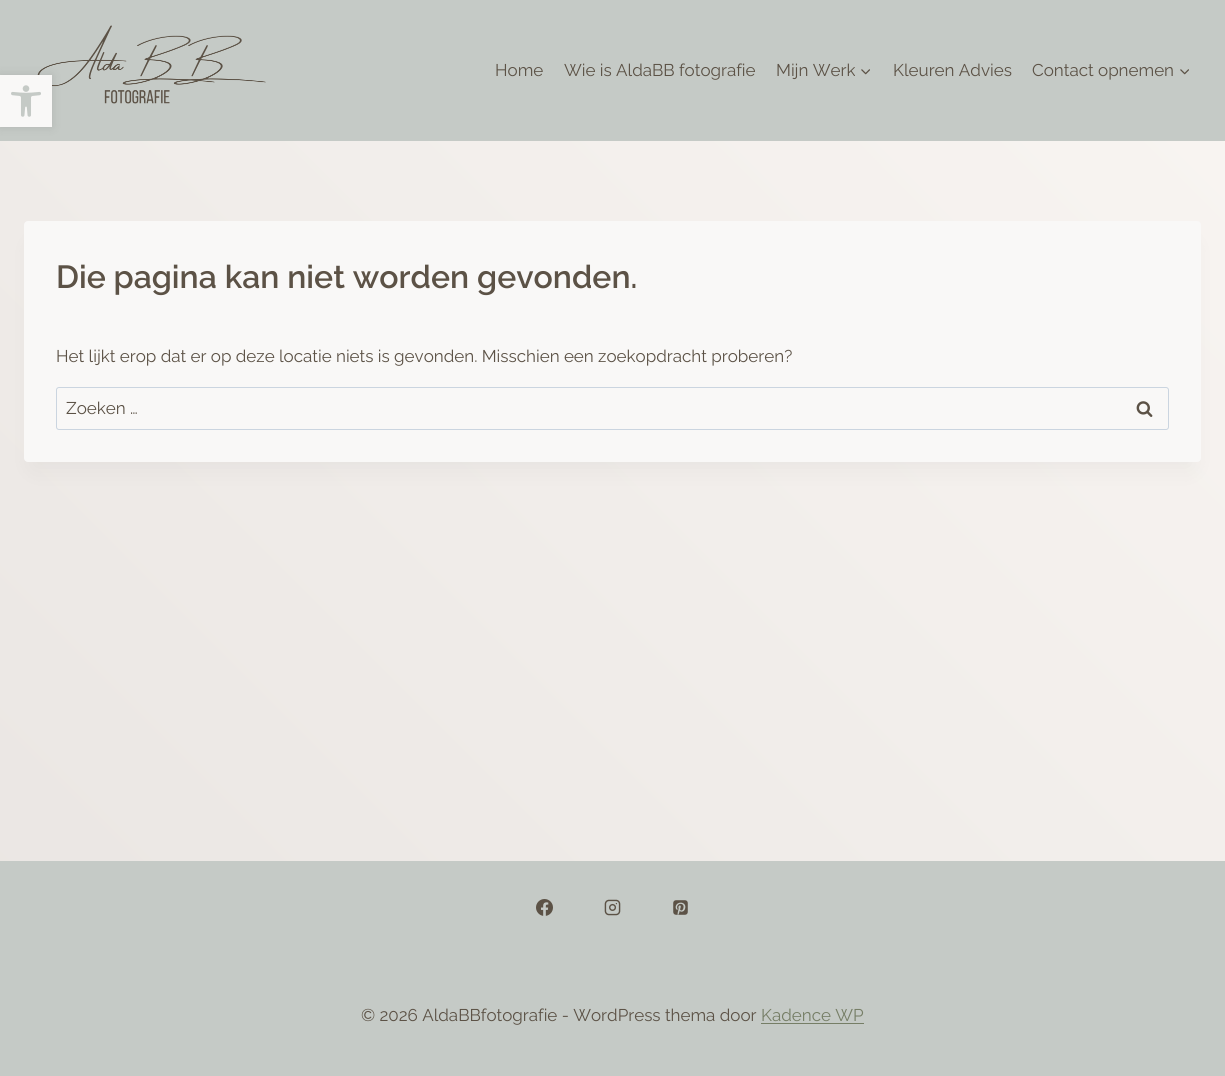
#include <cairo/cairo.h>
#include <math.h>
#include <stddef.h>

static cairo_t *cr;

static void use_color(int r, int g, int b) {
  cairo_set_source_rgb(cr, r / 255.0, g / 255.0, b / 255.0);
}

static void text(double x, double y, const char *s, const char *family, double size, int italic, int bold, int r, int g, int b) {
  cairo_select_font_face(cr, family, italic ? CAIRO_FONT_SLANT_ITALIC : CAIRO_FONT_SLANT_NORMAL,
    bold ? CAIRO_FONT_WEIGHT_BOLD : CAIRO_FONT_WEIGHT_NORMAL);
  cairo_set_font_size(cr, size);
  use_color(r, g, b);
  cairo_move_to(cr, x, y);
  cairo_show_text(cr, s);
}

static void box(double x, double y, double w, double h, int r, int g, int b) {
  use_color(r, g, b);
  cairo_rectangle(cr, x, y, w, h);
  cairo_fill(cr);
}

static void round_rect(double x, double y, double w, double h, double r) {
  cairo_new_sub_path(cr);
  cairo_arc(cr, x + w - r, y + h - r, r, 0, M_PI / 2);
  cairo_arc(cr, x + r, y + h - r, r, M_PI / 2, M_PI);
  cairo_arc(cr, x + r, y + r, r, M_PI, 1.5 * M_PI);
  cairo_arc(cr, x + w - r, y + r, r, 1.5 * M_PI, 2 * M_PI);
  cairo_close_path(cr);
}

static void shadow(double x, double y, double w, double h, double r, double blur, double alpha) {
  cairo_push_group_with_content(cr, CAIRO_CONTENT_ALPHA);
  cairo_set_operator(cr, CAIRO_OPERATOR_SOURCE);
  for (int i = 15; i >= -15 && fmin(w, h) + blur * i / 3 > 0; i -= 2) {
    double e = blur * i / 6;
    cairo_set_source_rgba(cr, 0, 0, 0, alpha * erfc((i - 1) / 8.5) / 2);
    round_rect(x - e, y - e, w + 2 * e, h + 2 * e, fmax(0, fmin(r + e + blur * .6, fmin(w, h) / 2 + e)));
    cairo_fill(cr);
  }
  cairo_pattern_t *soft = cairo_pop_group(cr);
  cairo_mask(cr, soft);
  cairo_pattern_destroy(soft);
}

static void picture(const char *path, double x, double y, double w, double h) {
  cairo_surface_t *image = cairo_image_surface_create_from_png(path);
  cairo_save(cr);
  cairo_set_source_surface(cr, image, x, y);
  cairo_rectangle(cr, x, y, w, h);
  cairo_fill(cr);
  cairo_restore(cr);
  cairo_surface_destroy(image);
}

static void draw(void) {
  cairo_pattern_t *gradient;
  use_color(255, 255, 255);
  cairo_paint(cr);
  gradient = cairo_pattern_create_linear(37, 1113, 1188, -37);
  cairo_pattern_add_color_stop_rgba(gradient, 0, 0.914, 0.898, 0.886, 1);
  cairo_pattern_add_color_stop_rgba(gradient, 1, 0.976, 0.961, 0.949, 1);
  cairo_set_source(cr, gradient);
  cairo_pattern_destroy(gradient);
  cairo_rectangle(cr, 0, 141, 1225, 720);
  cairo_fill(cr);
  box(0, 0, 1225, 141, 197, 202, 198);
  picture("img_02.png", 37, 25, 229, 79);
  use_color(0, 0, 0);
  shadow(0, 75, 52, 52, 0, 5, 0.1);
  box(0, 75, 52, 52, 249, 248, 247);
  picture("img_01.png", 11, 85, 30, 32);
  picture("img_03.png", 861, 69, 9, 6);
  picture("img_03.png", 1180, 69, 9, 6);
  use_color(0, 0, 0);
  shadow(34, 246, 1157, 221, 0, 12.5, 0.05);
  use_color(249, 248, 247);
  round_rect(24, 221, 1177, 241, 4);
  cairo_fill(cr);
  round_rect(56.5, 387.5, 1112, 42, 2.5);
  use_color(203, 213, 224);
  cairo_set_line_width(cr, 1);
  cairo_stroke(cr);
  picture("img_04.png", 1136, 401, 17, 16);
  box(0, 861, 1225, 215, 197, 202, 198);
  picture("img_05.png", 536, 899, 17, 17);
  picture("img_06.png", 604, 899, 17, 17);
  picture("img_07.png", 673, 900, 15, 15);
  box(761, 1023, 103, 1, 118, 126, 102);
  text(495, 76, "Home", "Raleway", 17, 0, 0, 92, 82, 70);
  text(564, 76, "Wie is AldaBB fotografie", "Raleway", 17, 0, 0, 92, 82, 70);
  text(776, 76, "Mijn Werk", "Raleway", 17, 0, 0, 92, 82, 70);
  text(893, 76, "Kleuren Advies", "Raleway", 17, 0, 0, 92, 82, 70);
  text(1032, 76, "Contact opnemen", "Raleway", 17, 0, 0, 92, 82, 70);
  text(56, 288, "Die pagina kan niet worden gevonden.", "Raleway SemiBold", 32, 0, 0, 92, 82, 70);
  text(56, 362, "Het lijkt erop dat er op deze locatie niets is gevonden. Misschien een zoekopdracht proberen?", "Raleway", 17, 0, 0, 92, 82, 70);
  text(66, 414, "Zoeken …", "Raleway", 17, 0, 0, 92, 82, 70);
  text(361, 1021, "© 2026 AldaBBfotografie - WordPress thema door", "Raleway", 17, 0, 0, 92, 82, 70);
  text(761, 1021, "Kadence WP", "Raleway", 17, 0, 0, 118, 126, 102);
}

int main(void) {
  cairo_surface_t *surface = cairo_image_surface_create(CAIRO_FORMAT_RGB24, 1225, 1076);
  cr = cairo_create(surface);
  cairo_font_options_t *options = cairo_font_options_create();
  cairo_font_options_set_hint_metrics(options, CAIRO_HINT_METRICS_OFF);
  cairo_font_options_set_hint_style(options, CAIRO_HINT_STYLE_NONE);
  cairo_set_font_options(cr, options);
  cairo_set_miter_limit(cr, 4);
  draw();
  cairo_surface_write_to_png(surface, "out.png");
  cairo_font_options_destroy(options);
  cairo_destroy(cr);
  cairo_surface_destroy(surface);
  return 0;
}
